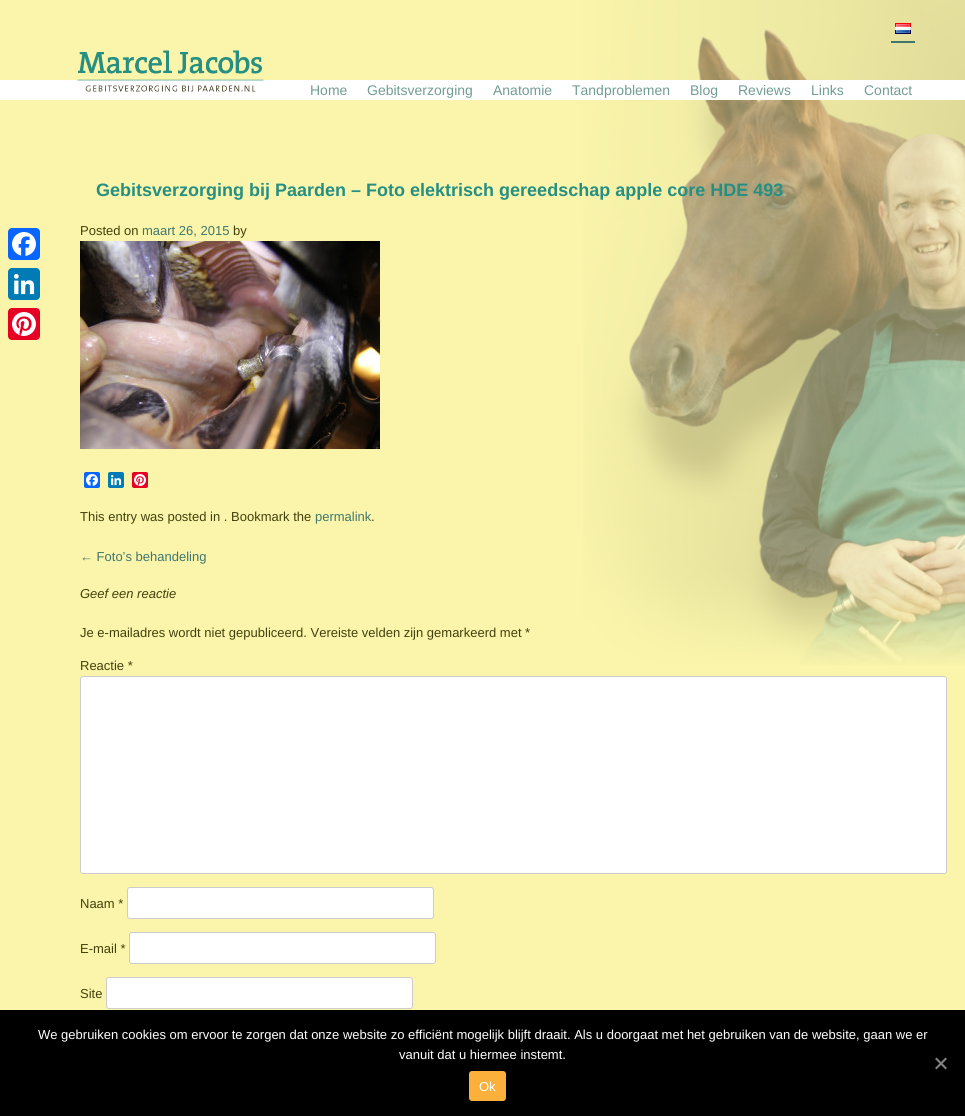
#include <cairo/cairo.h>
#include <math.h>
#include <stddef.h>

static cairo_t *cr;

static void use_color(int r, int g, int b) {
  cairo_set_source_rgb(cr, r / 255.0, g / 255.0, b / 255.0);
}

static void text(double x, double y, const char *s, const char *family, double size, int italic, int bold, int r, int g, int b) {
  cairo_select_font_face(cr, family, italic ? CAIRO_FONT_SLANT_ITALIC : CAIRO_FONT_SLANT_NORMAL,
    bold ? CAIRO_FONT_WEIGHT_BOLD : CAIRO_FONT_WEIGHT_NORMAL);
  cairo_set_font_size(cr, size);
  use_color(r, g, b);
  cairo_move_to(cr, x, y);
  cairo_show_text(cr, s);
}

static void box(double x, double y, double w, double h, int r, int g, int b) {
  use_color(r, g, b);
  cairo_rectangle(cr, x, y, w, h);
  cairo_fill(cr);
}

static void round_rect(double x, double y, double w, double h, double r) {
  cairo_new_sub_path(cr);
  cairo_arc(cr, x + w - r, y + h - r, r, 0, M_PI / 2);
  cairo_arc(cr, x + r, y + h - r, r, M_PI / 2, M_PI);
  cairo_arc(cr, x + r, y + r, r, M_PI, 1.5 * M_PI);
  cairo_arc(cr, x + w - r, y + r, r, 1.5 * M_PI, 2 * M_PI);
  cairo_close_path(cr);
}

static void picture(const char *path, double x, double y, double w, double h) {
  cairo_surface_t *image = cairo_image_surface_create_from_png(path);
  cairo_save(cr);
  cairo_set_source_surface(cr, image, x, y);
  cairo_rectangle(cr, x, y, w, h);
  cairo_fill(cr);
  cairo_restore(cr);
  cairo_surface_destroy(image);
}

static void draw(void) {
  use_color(250, 245, 171);
  cairo_paint(cr);
  picture("img_01.png", 583, 0, 382, 665);
  box(0, 80, 965, 20, 255, 255, 255);
  use_color(8, 102, 255);
  round_rect(8, 228, 32, 32, 4);
  cairo_fill(cr);
  picture("img_02.png", 12, 232, 24, 24);
  use_color(0, 123, 181);
  round_rect(8, 268, 32, 32, 4);
  cairo_fill(cr);
  picture("img_03.png", 13, 273, 22, 22);
  use_color(230, 0, 35);
  round_rect(8, 308, 32, 32, 4);
  cairo_fill(cr);
  picture("img_04.png", 12, 312, 24, 24);
  picture("img_05.png", 895, 23, 16, 11);
  box(891, 41, 24, 2, 65, 118, 108);
  picture("img_06.png", 77, 50, 187, 42);
  picture("img_07.png", 80, 241, 300, 208);
  use_color(8, 102, 255);
  round_rect(84, 472, 16, 16, 2);
  cairo_fill(cr);
  picture("img_08.png", 86, 474, 12, 12);
  use_color(0, 123, 181);
  round_rect(108, 472, 16, 16, 2);
  cairo_fill(cr);
  picture("img_09.png", 111, 475, 11, 11);
  use_color(230, 0, 35);
  round_rect(132, 472, 16, 16, 2);
  cairo_fill(cr);
  picture("img_10.png", 134, 474, 12, 12);
  use_color(255, 255, 255);
  round_rect(80.5, 676.5, 866, 197, 2.5);
  cairo_fill_preserve(cr);
  use_color(204, 204, 204);
  cairo_set_line_width(cr, 1);
  cairo_stroke(cr);
  use_color(255, 255, 255);
  round_rect(127.5, 887.5, 306, 31, 2.5);
  cairo_fill_preserve(cr);
  use_color(204, 204, 204);
  cairo_stroke(cr);
  use_color(255, 255, 255);
  round_rect(129.5, 932.5, 306, 31, 2.5);
  cairo_fill_preserve(cr);
  use_color(204, 204, 204);
  cairo_stroke(cr);
  use_color(255, 255, 255);
  round_rect(106.5, 977.5, 306, 31, 2.5);
  cairo_fill_preserve(cr);
  use_color(204, 204, 204);
  cairo_stroke(cr);
  box(0, 1010, 965, 106, 0, 0, 0);
  use_color(128, 128, 128);
  cairo_new_path(cr);
  cairo_move_to(cr, 945.5, 1057.5);
  cairo_line_to(cr, 947, 1059);
  cairo_line_to(cr, 936.5, 1069.5);
  cairo_line_to(cr, 935, 1068);
  cairo_close_path(cr);
  cairo_fill(cr);
  cairo_new_path(cr);
  cairo_move_to(cr, 935, 1059);
  cairo_line_to(cr, 936.5, 1057.5);
  cairo_line_to(cr, 947, 1068);
  cairo_line_to(cr, 945.5, 1069.5);
  cairo_close_path(cr);
  cairo_fill(cr);
  use_color(251, 176, 59);
  round_rect(469, 1071, 37, 30, 3);
  cairo_fill(cr);
  text(310, 95, "Home", "Liberation Sans", 14, 0, 0, 114, 156, 149);
  text(367, 95, "Gebitsverzorging", "Liberation Sans", 14, 0, 0, 114, 156, 149);
  text(493, 95, "Anatomie", "Liberation Sans", 14, 0, 0, 114, 156, 149);
  text(572, 95, "Tandproblemen", "Liberation Sans", 14, 0, 0, 114, 156, 149);
  text(690, 95, "Blog", "Liberation Sans", 14, 0, 0, 114, 156, 149);
  text(738, 95, "Reviews", "Liberation Sans", 14, 0, 0, 114, 156, 149);
  text(811, 95, "Links", "Liberation Sans", 14, 0, 0, 114, 156, 149);
  text(864, 95, "Contact", "Liberation Sans", 14, 0, 0, 114, 156, 149);
  text(96, 196, "Gebitsverzorging bij Paarden – Foto elektrisch gereedschap apple core HDE 493", "Liberation Sans", 18, 0, 1, 38, 143, 130);
  text(80, 235, "Posted on", "Liberation Sans", 13, 0, 0, 66, 65, 11);
  text(142, 235, "maart 26, 2015", "Liberation Sans", 13, 0, 0, 65, 118, 108);
  text(233, 235, "by", "Liberation Sans", 13, 0, 0, 66, 65, 11);
  text(80, 521, "This entry was posted in . Bookmark the", "Liberation Sans", 13, 0, 0, 66, 65, 11);
  text(315, 521, "permalink", "Liberation Sans", 13, 0, 0, 65, 118, 108);
  text(371, 521, ".", "Liberation Sans", 13, 0, 0, 66, 65, 11);
  text(80, 561, "← Foto’s behandeling", "Liberation Sans", 13, 0, 0, 65, 118, 108);
  text(80, 598, "Geef een reactie", "Liberation Sans", 13, 1, 0, 66, 65, 11);
  text(80, 637, "Je e-mailadres wordt niet gepubliceerd. Vereiste velden zijn gemarkeerd met *", "Liberation Sans", 13, 0, 0, 66, 65, 11);
  text(80, 670, "Reactie *", "Liberation Sans", 13, 0, 0, 66, 65, 11);
  text(80, 908, "Naam *", "Liberation Sans", 13, 0, 0, 66, 65, 11);
  text(80, 953, "E-mail *", "Liberation Sans", 13, 0, 0, 66, 65, 11);
  text(80, 998, "Site", "Liberation Sans", 13, 0, 0, 66, 65, 11);
  text(38, 1039, "We gebruiken cookies om ervoor te zorgen dat onze website zo efficiënt mogelijk blijft draait. Als u doorgaat met het gebruiken van de website, gaan we er", "Liberation Sans", 13, 0, 0, 255, 255, 255);
  text(399, 1059, "vanuit dat u hiermee instemt.", "Liberation Sans", 13, 0, 0, 255, 255, 255);
  text(479, 1091, "Ok", "Liberation Sans", 13, 0, 0, 255, 255, 255);
}

int main(void) {
  cairo_surface_t *surface = cairo_image_surface_create(CAIRO_FORMAT_RGB24, 965, 1116);
  cr = cairo_create(surface);
  cairo_font_options_t *options = cairo_font_options_create();
  cairo_font_options_set_hint_metrics(options, CAIRO_HINT_METRICS_OFF);
  cairo_font_options_set_hint_style(options, CAIRO_HINT_STYLE_NONE);
  cairo_set_font_options(cr, options);
  cairo_set_miter_limit(cr, 4);
  draw();
  cairo_surface_write_to_png(surface, "out.png");
  cairo_font_options_destroy(options);
  cairo_destroy(cr);
  cairo_surface_destroy(surface);
  return 0;
}
